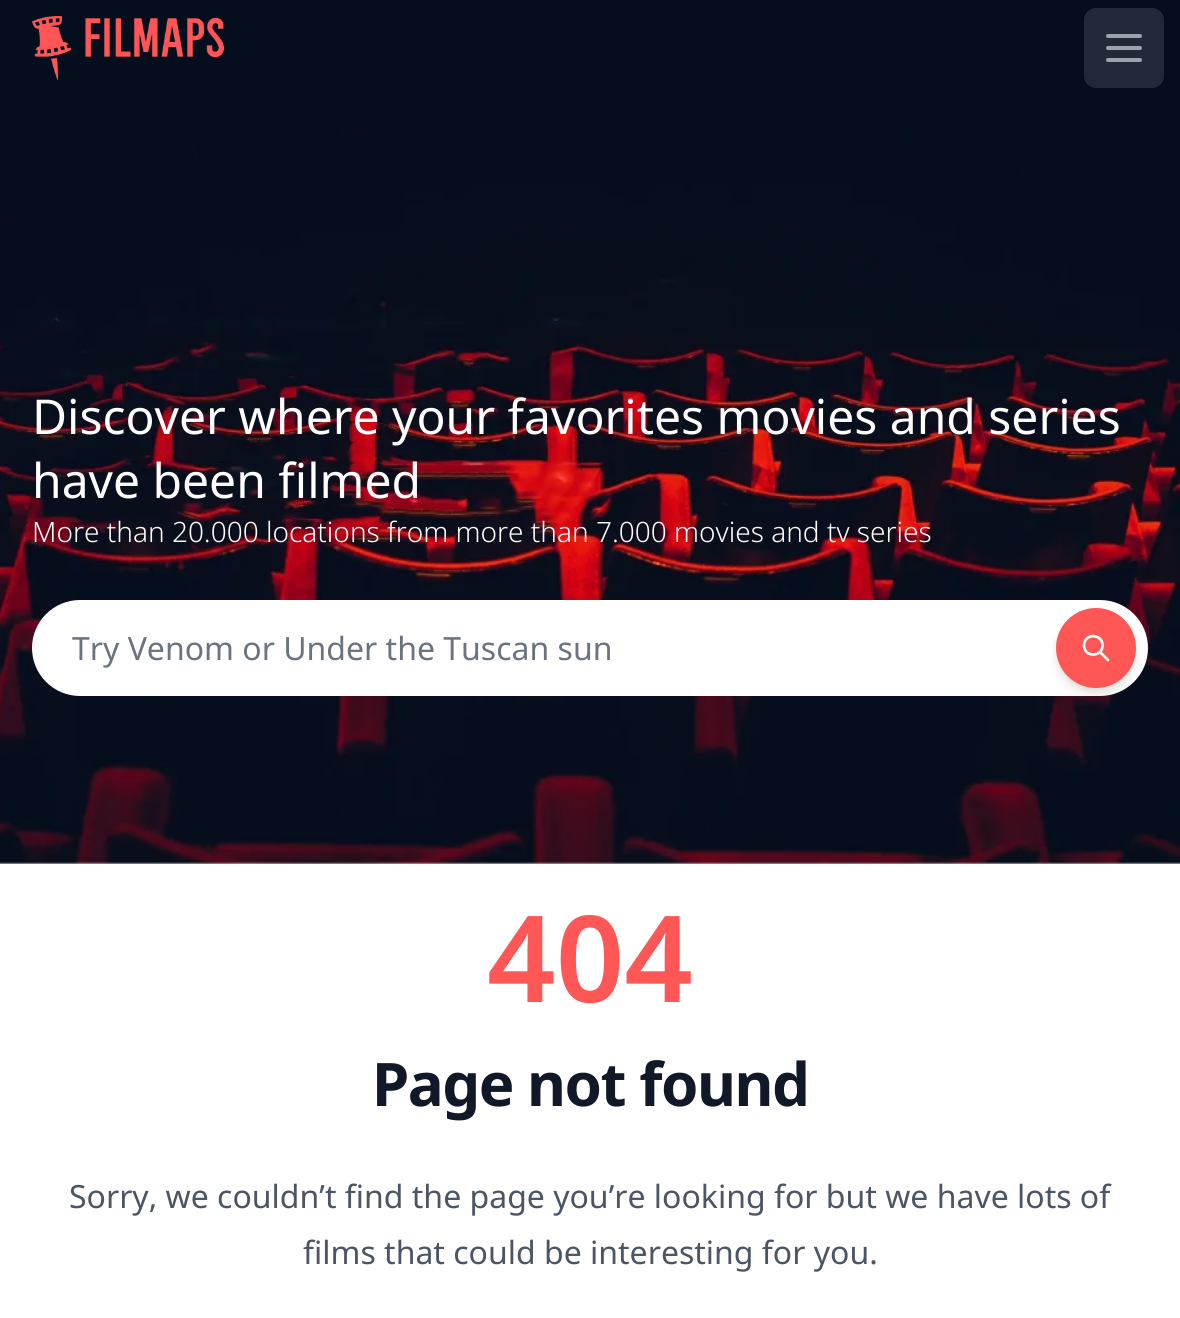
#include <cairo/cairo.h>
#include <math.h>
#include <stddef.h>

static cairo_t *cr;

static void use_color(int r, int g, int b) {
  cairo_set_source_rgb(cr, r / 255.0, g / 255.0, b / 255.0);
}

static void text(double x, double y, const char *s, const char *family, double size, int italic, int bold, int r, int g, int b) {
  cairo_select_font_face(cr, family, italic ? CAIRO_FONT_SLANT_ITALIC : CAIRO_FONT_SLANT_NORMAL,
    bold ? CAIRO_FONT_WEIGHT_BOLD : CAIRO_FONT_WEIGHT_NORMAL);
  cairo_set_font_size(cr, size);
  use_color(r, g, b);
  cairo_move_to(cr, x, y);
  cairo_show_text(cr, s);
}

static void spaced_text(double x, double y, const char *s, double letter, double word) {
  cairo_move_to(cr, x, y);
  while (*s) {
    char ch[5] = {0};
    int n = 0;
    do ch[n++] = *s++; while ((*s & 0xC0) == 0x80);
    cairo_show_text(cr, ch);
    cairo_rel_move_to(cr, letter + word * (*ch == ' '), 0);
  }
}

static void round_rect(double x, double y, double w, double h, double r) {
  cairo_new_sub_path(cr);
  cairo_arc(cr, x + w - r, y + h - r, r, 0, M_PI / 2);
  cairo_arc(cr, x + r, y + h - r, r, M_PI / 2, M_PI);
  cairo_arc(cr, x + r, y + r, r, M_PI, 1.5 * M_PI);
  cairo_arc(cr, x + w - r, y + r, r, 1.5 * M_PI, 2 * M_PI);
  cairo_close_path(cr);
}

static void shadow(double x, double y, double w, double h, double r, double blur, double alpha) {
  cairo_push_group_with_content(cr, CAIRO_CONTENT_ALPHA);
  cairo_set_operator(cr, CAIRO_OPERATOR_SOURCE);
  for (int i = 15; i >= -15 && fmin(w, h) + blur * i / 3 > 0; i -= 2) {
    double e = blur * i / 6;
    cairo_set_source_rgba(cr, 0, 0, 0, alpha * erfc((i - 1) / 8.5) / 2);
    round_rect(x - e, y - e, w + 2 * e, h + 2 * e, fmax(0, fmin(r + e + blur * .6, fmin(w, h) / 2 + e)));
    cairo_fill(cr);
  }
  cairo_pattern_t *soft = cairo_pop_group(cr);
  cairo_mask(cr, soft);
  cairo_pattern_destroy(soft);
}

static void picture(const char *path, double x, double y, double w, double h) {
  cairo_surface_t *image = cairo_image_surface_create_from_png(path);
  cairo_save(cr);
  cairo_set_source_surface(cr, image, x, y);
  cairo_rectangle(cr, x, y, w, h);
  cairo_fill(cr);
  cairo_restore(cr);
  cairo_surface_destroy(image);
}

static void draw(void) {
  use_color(255, 255, 255);
  cairo_paint(cr);
  picture("img_01.png", 0, 0, 1180, 864);
  picture("img_02.png", 32, 16, 192, 64);
  use_color(31, 41, 55);
  round_rect(1084, 8, 80, 80, 12);
  cairo_fill(cr);
  cairo_new_path(cr);
  cairo_move_to(cr, 1108, 36);
  cairo_line_to(cr, 1140, 36);
  cairo_move_to(cr, 1108, 48);
  cairo_line_to(cr, 1140, 48);
  cairo_move_to(cr, 1108, 60);
  cairo_line_to(cr, 1140, 60);
  use_color(156, 163, 175);
  cairo_set_line_width(cr, 4);
  cairo_set_line_cap(cr, CAIRO_LINE_CAP_ROUND);
  cairo_set_line_join(cr, CAIRO_LINE_JOIN_ROUND);
  cairo_stroke(cr);
  use_color(255, 255, 255);
  round_rect(32, 600, 1116, 96, 48);
  cairo_fill(cr);
  use_color(0, 0, 0);
  shadow(1060, 616, 72, 72, 36, 4, 0.1);
  shadow(1058, 618, 76, 76, 38, 6, 0.1);
  use_color(255, 86, 86);
  cairo_arc(cr, 1096, 648, 40, 0, 2 * M_PI);
  cairo_fill(cr);
  cairo_new_path(cr);
  cairo_move_to(cr, 1108, 660);
  cairo_line_to(cr, 1100, 652);
  cairo_move_to(cr, 1102.5, 645.5);
  cairo_curve_to(cr, 1102.5, 657.5, 1084, 657.5, 1084, 645.5);
  cairo_curve_to(cr, 1084, 633, 1102.5, 633, 1102.5, 645.5);
  cairo_close_path(cr);
  use_color(255, 255, 255);
  cairo_set_line_width(cr, 2.7);
  cairo_stroke(cr);
  text(32, 434, "Discover where your favorites movies and series", "Noto Sans", 48, 0, 0, 255, 255, 255);
  text(32, 498, "have been filmed", "Noto Sans", 48, 0, 0, 255, 255, 255);
  text(32, 542, "More than 20.000 locations from more than 7.000 movies and tv series", "Noto Sans Light", 28, 0, 0, 255, 255, 255);
  text(72, 660, "Try Venom or Under the Tuscan sun", "Noto Sans", 32, 0, 0, 107, 114, 128);
  text(487, 1002, "404", "Noto Sans SemiBold", 120, 0, 0, 255, 86, 86);
  cairo_select_font_face(cr, "Noto Sans", CAIRO_FONT_SLANT_NORMAL, CAIRO_FONT_WEIGHT_BOLD);
  cairo_set_font_size(cr, 60);
  use_color(17, 24, 39);
  spaced_text(372, 1106, "Page not found", -1.5, 0);
  text(69, 1208, "Sorry, we couldn’t find the page you’re looking for but we have lots of", "Noto Sans", 32, 0, 0, 75, 85, 99);
  text(303, 1264, "films that could be interesting for you.", "Noto Sans", 32, 0, 0, 75, 85, 99);
}

int main(void) {
  cairo_surface_t *surface = cairo_image_surface_create(CAIRO_FORMAT_RGB24, 1180, 1318);
  cr = cairo_create(surface);
  cairo_font_options_t *options = cairo_font_options_create();
  cairo_font_options_set_hint_metrics(options, CAIRO_HINT_METRICS_OFF);
  cairo_font_options_set_hint_style(options, CAIRO_HINT_STYLE_NONE);
  cairo_set_font_options(cr, options);
  cairo_set_miter_limit(cr, 4);
  draw();
  cairo_surface_write_to_png(surface, "out.png");
  cairo_font_options_destroy(options);
  cairo_destroy(cr);
  cairo_surface_destroy(surface);
  return 0;
}
